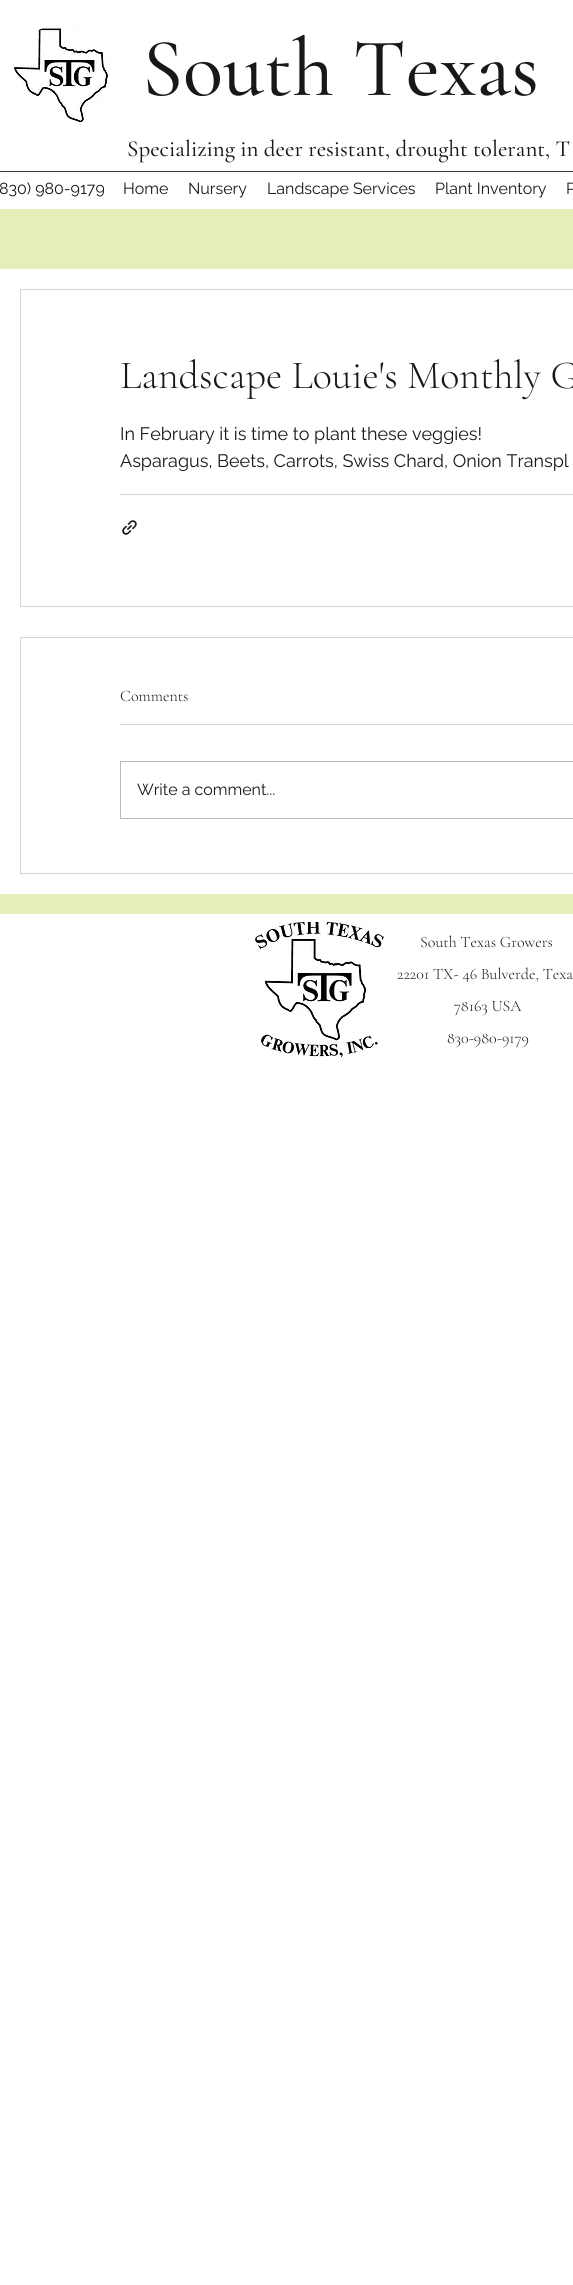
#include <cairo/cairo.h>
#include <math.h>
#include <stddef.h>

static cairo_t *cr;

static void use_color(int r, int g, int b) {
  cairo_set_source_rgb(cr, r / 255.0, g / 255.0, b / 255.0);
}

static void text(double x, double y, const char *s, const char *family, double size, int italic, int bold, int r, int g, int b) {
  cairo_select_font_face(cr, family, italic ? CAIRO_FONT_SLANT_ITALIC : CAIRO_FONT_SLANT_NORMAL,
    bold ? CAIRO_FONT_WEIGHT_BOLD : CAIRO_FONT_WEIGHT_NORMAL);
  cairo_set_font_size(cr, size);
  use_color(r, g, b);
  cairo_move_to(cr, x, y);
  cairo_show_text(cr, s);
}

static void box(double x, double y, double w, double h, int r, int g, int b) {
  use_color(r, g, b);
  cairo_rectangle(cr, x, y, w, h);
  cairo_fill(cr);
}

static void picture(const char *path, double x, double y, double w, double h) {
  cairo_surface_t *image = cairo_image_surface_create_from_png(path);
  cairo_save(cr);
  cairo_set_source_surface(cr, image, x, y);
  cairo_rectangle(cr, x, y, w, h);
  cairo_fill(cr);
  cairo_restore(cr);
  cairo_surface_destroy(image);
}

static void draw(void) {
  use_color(255, 255, 255);
  cairo_paint(cr);
  picture("img_01.png", 14, 25, 96, 98);
  box(0, 171, 573, 1, 59, 59, 59);
  box(0, 209, 573, 705, 228, 238, 184);
  box(0, 269, 573, 625, 255, 255, 255);
  cairo_rectangle(cr, 20.5, 289.5, 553, 317);
  use_color(212, 212, 212);
  cairo_set_line_width(cr, 1);
  cairo_stroke(cr);
  box(120, 494, 453, 1, 209, 209, 209);
  picture("img_02.png", 122, 520, 15, 15);
  cairo_rectangle(cr, 20.5, 637.5, 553, 236);
  use_color(212, 212, 212);
  cairo_stroke(cr);
  box(120, 724, 453, 1, 209, 209, 209);
  cairo_rectangle(cr, 120.5, 761.5, 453, 57);
  use_color(186, 186, 186);
  cairo_stroke(cr);
  picture("img_03.png", 255, 922, 129, 135);
  text(142, 95, "South Texas", "Cormorant Garamond Medium", 83, 0, 0, 24, 24, 24);
  text(127, 156, "Specializing in deer resistant, drought tolerant, T", "Cormorant Garamond Medium", 23, 0, 0, 24, 24, 24);
  text(-1, 194, "830) 980-9179", "Raleway", 16, 0, 0, 24, 24, 24);
  text(123, 194, "Home", "Raleway", 16, 0, 0, 24, 24, 24);
  text(188, 194, "Nursery", "Raleway", 16, 0, 0, 24, 24, 24);
  text(267, 194, "Landscape Services", "Raleway", 16, 0, 0, 24, 24, 24);
  text(435, 194, "Plant Inventory", "Raleway", 16, 0, 0, 24, 24, 24);
  text(566, 194, "P", "Raleway", 16, 0, 0, 24, 24, 24);
  text(120, 388, "Landscape Louie's Monthly G", "Cormorant Garamond Light", 40, 0, 0, 24, 24, 24);
  text(120, 440, "In February it is time to plant these veggies!", "Raleway", 18, 0, 0, 24, 24, 24);
  text(120, 467, "Asparagus, Beets, Carrots, Swiss Chard, Onion Transpl", "Raleway", 18, 0, 0, 24, 24, 24);
  text(120, 701, "Comments", "Cormorant Garamond Light", 16, 0, 0, 24, 24, 24);
  text(137, 795, "Write a comment...", "Raleway", 16, 0, 0, 24, 24, 24);
  text(420, 947, "South Texas Growers", "Cormorant Garamond Light", 16, 0, 0, 24, 24, 24);
  text(397, 979, "22201 TX- 46 Bulverde, Texa", "Cormorant Garamond Light", 16, 0, 0, 24, 24, 24);
  text(454, 1011, "78163 USA", "Cormorant Garamond Light", 16, 0, 0, 24, 24, 24);
  text(447, 1043, "830-980-9179", "Cormorant Garamond Light", 16, 0, 0, 24, 24, 24);
}

int main(void) {
  cairo_surface_t *surface = cairo_image_surface_create(CAIRO_FORMAT_RGB24, 573, 2285);
  cr = cairo_create(surface);
  cairo_font_options_t *options = cairo_font_options_create();
  cairo_font_options_set_hint_metrics(options, CAIRO_HINT_METRICS_OFF);
  cairo_font_options_set_hint_style(options, CAIRO_HINT_STYLE_NONE);
  cairo_set_font_options(cr, options);
  cairo_set_miter_limit(cr, 4);
  draw();
  cairo_surface_write_to_png(surface, "out.png");
  cairo_font_options_destroy(options);
  cairo_destroy(cr);
  cairo_surface_destroy(surface);
  return 0;
}
